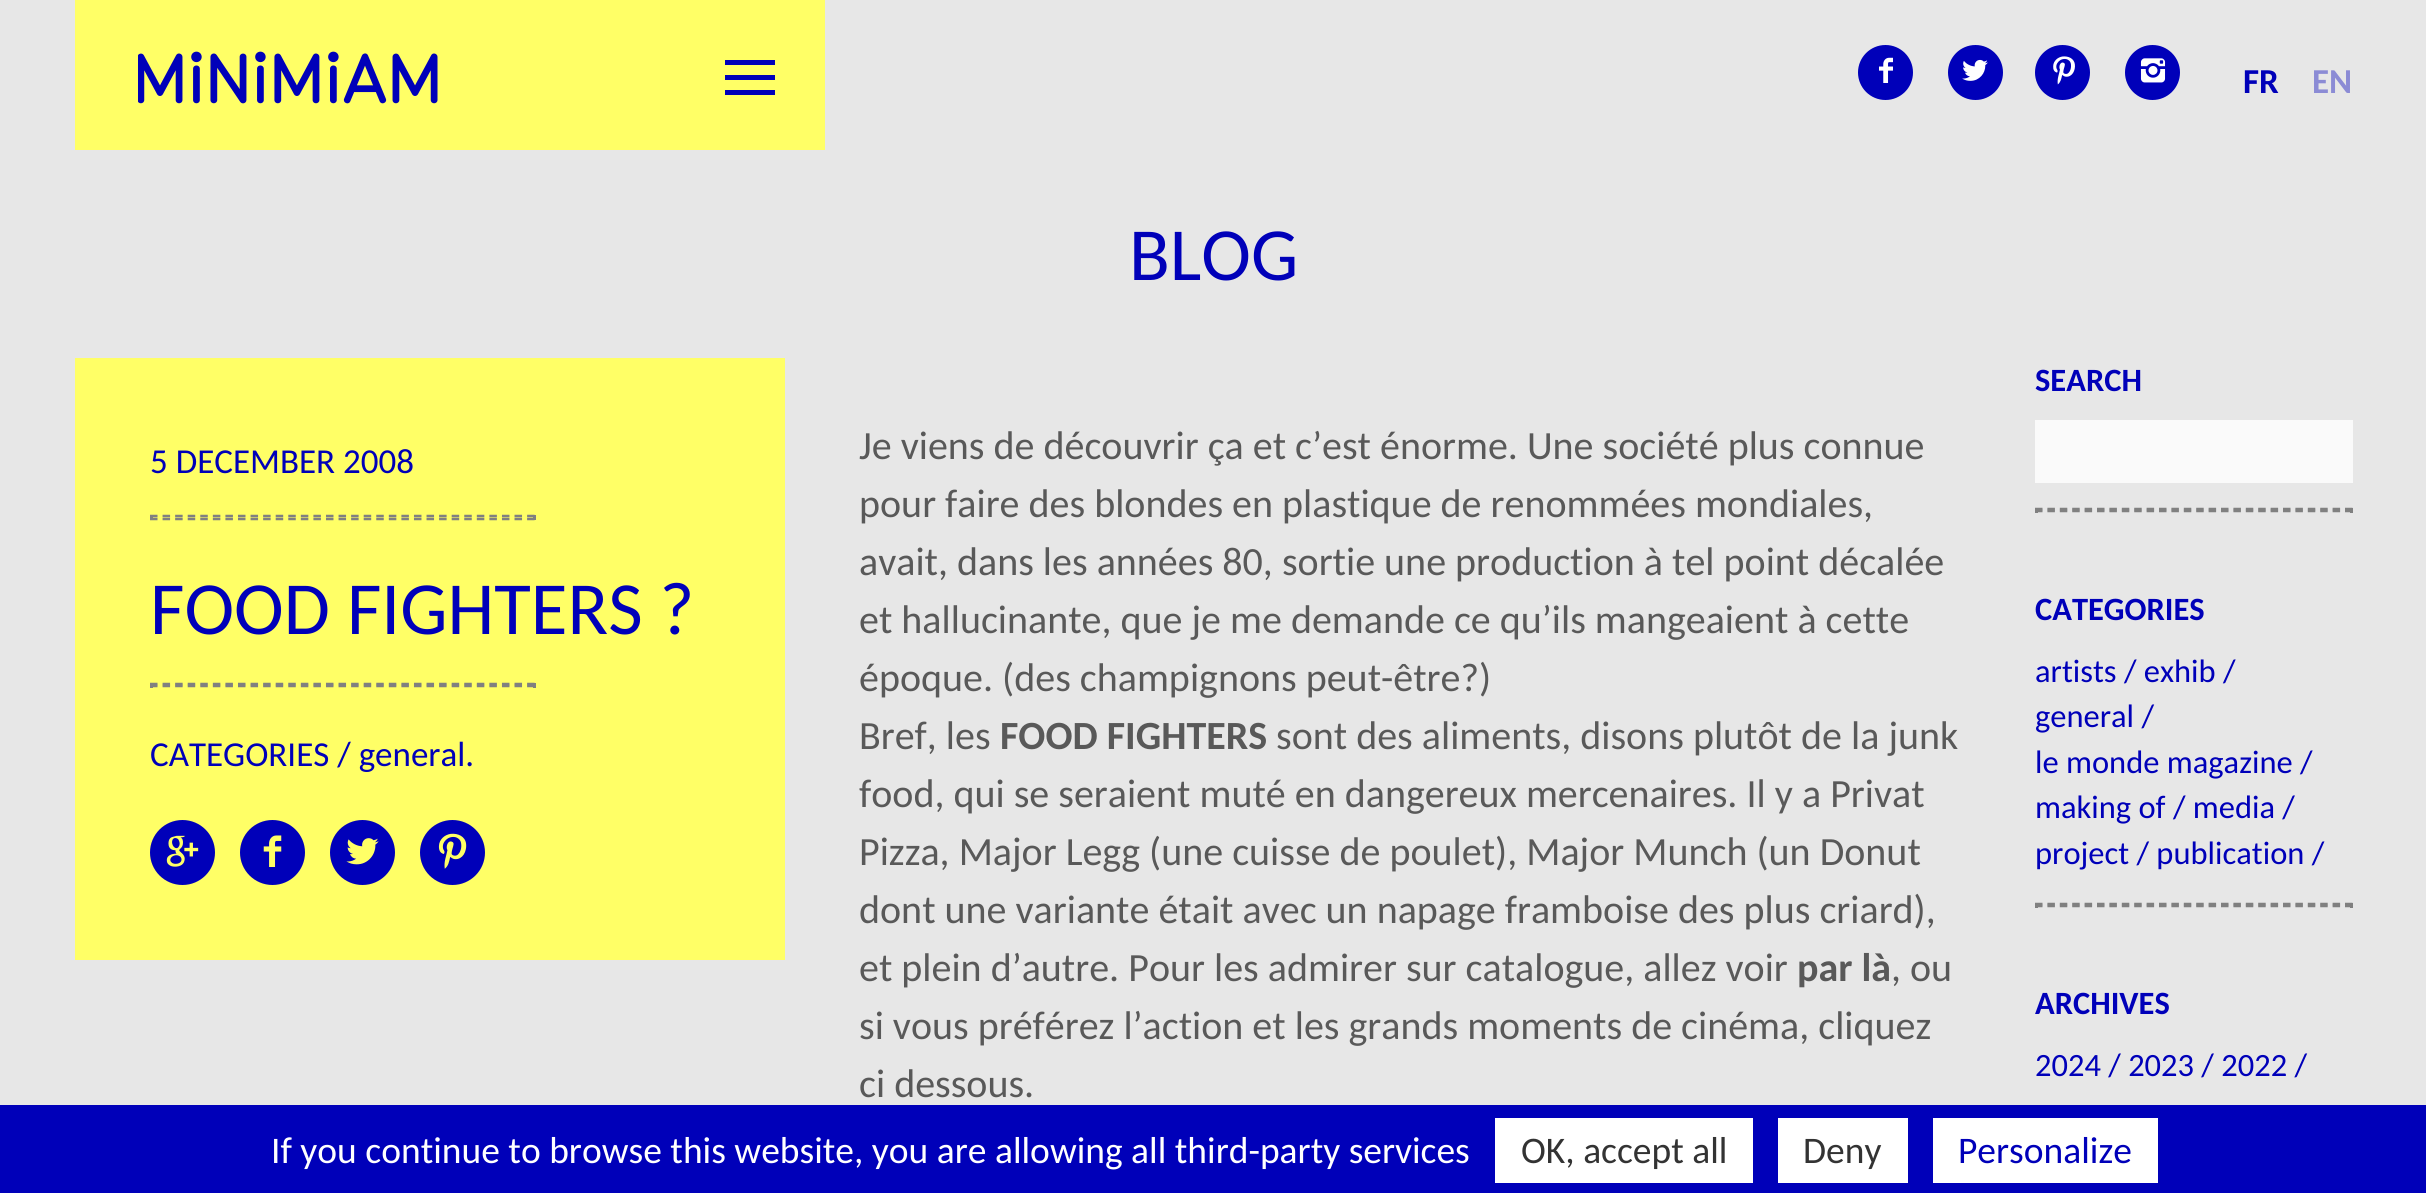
#include <cairo/cairo.h>
#include <math.h>
#include <stddef.h>

static cairo_t *cr;

static void use_color(int r, int g, int b) {
  cairo_set_source_rgb(cr, r / 255.0, g / 255.0, b / 255.0);
}

static void text(double x, double y, const char *s, const char *family, double size, int italic, int bold, int r, int g, int b) {
  cairo_select_font_face(cr, family, italic ? CAIRO_FONT_SLANT_ITALIC : CAIRO_FONT_SLANT_NORMAL,
    bold ? CAIRO_FONT_WEIGHT_BOLD : CAIRO_FONT_WEIGHT_NORMAL);
  cairo_set_font_size(cr, size);
  use_color(r, g, b);
  cairo_move_to(cr, x, y);
  cairo_show_text(cr, s);
}

static void box(double x, double y, double w, double h, int r, int g, int b) {
  use_color(r, g, b);
  cairo_rectangle(cr, x, y, w, h);
  cairo_fill(cr);
}

static void picture(const char *path, double x, double y, double w, double h) {
  cairo_surface_t *image = cairo_image_surface_create_from_png(path);
  cairo_save(cr);
  cairo_set_source_surface(cr, image, x, y);
  cairo_rectangle(cr, x, y, w, h);
  cairo_fill(cr);
  cairo_restore(cr);
  cairo_surface_destroy(image);
}

static void draw(void) {
  use_color(231, 231, 231);
  cairo_paint(cr);
  box(75, 0, 750, 150, 255, 255, 102);
  picture("img_01.png", 138, 51, 300, 53);
  box(725, 60, 50, 5, 0, 0, 185);
  box(725, 75, 50, 5, 0, 0, 185);
  box(725, 90, 50, 5, 0, 0, 185);
  cairo_arc(cr, 1885.5, 72.5, 27.5, 0, 2 * M_PI);
  cairo_fill(cr);
  cairo_arc(cr, 1975.5, 72.5, 27.5, 0, 2 * M_PI);
  cairo_fill(cr);
  cairo_arc(cr, 2062.5, 72.5, 27.5, 0, 2 * M_PI);
  cairo_fill(cr);
  cairo_arc(cr, 2152.5, 72.5, 27.5, 0, 2 * M_PI);
  cairo_fill(cr);
  box(75, 358, 710, 602, 255, 255, 102);
  cairo_new_path(cr);
  cairo_move_to(cr, 150, 516);
  cairo_line_to(cr, 535, 516);
  use_color(128, 128, 128);
  cairo_set_line_width(cr, 2.5);
  cairo_set_dash(cr, (double[]){7.5, 5.07}, 2, 0);
  cairo_stroke(cr);
  box(533, 515, 3, 5, 128, 128, 128);
  cairo_new_path(cr);
  cairo_move_to(cr, 150, 519);
  cairo_line_to(cr, 535, 519);
  cairo_stroke(cr);
  box(150, 515, 3, 5, 128, 128, 128);
  cairo_new_path(cr);
  cairo_move_to(cr, 150, 684);
  cairo_line_to(cr, 535, 684);
  cairo_stroke(cr);
  box(533, 683, 3, 5, 128, 128, 128);
  cairo_new_path(cr);
  cairo_move_to(cr, 150, 686);
  cairo_line_to(cr, 535, 686);
  cairo_stroke(cr);
  box(150, 683, 3, 5, 128, 128, 128);
  use_color(0, 0, 185);
  cairo_arc(cr, 182.5, 852.5, 32.5, 0, 2 * M_PI);
  cairo_fill(cr);
  cairo_arc(cr, 272.5, 852.5, 32.5, 0, 2 * M_PI);
  cairo_fill(cr);
  cairo_arc(cr, 362.5, 852.5, 32.5, 0, 2 * M_PI);
  cairo_fill(cr);
  cairo_arc(cr, 452.5, 852.5, 32.5, 0, 2 * M_PI);
  cairo_fill(cr);
  box(2035, 420, 318, 63, 250, 250, 250);
  cairo_new_path(cr);
  cairo_move_to(cr, 2035, 509);
  cairo_line_to(cr, 2352.5, 509);
  use_color(128, 128, 128);
  cairo_set_dash(cr, (double[]){7.5, 4.9}, 2, 0);
  cairo_stroke(cr);
  box(2350, 508, 3, 5, 128, 128, 128);
  cairo_new_path(cr);
  cairo_move_to(cr, 2035, 511);
  cairo_line_to(cr, 2352.5, 511);
  cairo_stroke(cr);
  box(2035, 508, 3, 5, 128, 128, 128);
  cairo_new_path(cr);
  cairo_move_to(cr, 2035, 904);
  cairo_line_to(cr, 2352.5, 904);
  cairo_stroke(cr);
  box(2350, 903, 3, 5, 128, 128, 128);
  cairo_new_path(cr);
  cairo_move_to(cr, 2035, 906);
  cairo_line_to(cr, 2352.5, 906);
  cairo_stroke(cr);
  box(2035, 903, 3, 5, 128, 128, 128);
  box(0, 1105, 2426, 88, 0, 0, 185);
  box(1495, 1118, 258, 65, 255, 255, 255);
  box(1778, 1118, 130, 65, 255, 255, 255);
  box(1933, 1118, 225, 65, 255, 255, 255);
  text(1872, 83, "f", "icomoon", 28, 0, 0, 255, 255, 255);
  text(1961, 83, "t", "icomoon", 28, 0, 0, 255, 255, 255);
  text(2050, 83, "p", "icomoon", 28, 0, 0, 255, 255, 255);
  text(2139, 83, "i", "icomoon", 28, 0, 0, 255, 255, 255);
  text(2243, 93, "FR", "Carlito", 35, 0, 1, 0, 0, 185);
  text(2312, 93, "EN", "Carlito", 35, 0, 1, 139, 139, 213);
  text(1129, 280, "BLOG", "Carlito", 75, 0, 0, 0, 0, 185);
  text(150, 473, "5 DECEMBER 2008", "Carlito", 35, 0, 0, 0, 0, 185);
  text(150, 634, "FOOD FIGHTERS ?", "Carlito", 75, 0, 0, 0, 0, 185);
  text(150, 766, "CATEGORIES / general.", "Carlito", 35, 0, 0, 0, 0, 185);
  text(165, 867, "g", "icomoon", 35, 0, 0, 255, 255, 102);
  text(255, 867, "f", "icomoon", 35, 0, 0, 255, 255, 102);
  text(345, 867, "t", "icomoon", 35, 0, 0, 255, 255, 102);
  text(435, 867, "p", "icomoon", 35, 0, 0, 255, 255, 102);
  text(859, 459, "Je viens de découvrir ça et c’est énorme. Une société plus connue", "Carlito", 40, 0, 0, 89, 89, 89);
  text(859, 517, "pour faire des blondes en plastique de renommées mondiales,", "Carlito", 40, 0, 0, 89, 89, 89);
  text(859, 575, "avait, dans les années 80, sortie une production à tel point décalée", "Carlito", 40, 0, 0, 89, 89, 89);
  text(859, 633, "et hallucinante, que je me demande ce qu’ils mangeaient à cette", "Carlito", 40, 0, 0, 89, 89, 89);
  text(859, 691, "époque. (des champignons peut-être?)", "Carlito", 40, 0, 0, 89, 89, 89);
  text(859, 749, "Bref, les", "Carlito", 40, 0, 0, 89, 89, 89);
  text(1000, 749, "FOOD FIGHTERS", "Carlito", 40, 0, 1, 89, 89, 89);
  text(1276, 749, "sont des aliments, disons plutôt de la junk", "Carlito", 40, 0, 0, 89, 89, 89);
  text(859, 807, "food, qui se seraient muté en dangereux mercenaires. Il y a Privat", "Carlito", 40, 0, 0, 89, 89, 89);
  text(859, 865, "Pizza, Major Legg (une cuisse de poulet), Major Munch (un Donut", "Carlito", 40, 0, 0, 89, 89, 89);
  text(859, 923, "dont une variante était avec un napage framboise des plus criard),", "Carlito", 40, 0, 0, 89, 89, 89);
  text(859, 981, "et plein d’autre. Pour les admirer sur catalogue, allez voir", "Carlito", 40, 0, 0, 89, 89, 89);
  text(1797, 981, "par là", "Carlito", 40, 0, 1, 89, 89, 89);
  text(1891, 981, ", ou", "Carlito", 40, 0, 0, 89, 89, 89);
  text(859, 1039, "si vous préférez l’action et les grands moments de cinéma, cliquez", "Carlito", 40, 0, 0, 89, 89, 89);
  text(859, 1097, "ci dessous.", "Carlito", 40, 0, 0, 89, 89, 89);
  text(2035, 391, "SEARCH", "Carlito", 32.5, 0, 1, 0, 0, 185);
  text(2035, 620, "CATEGORIES", "Carlito", 32.5, 0, 1, 0, 0, 185);
  text(2035, 682, "artists / exhib /", "Carlito", 32.5, 0, 0, 0, 0, 185);
  text(2035, 727, "general /", "Carlito", 32.5, 0, 0, 0, 0, 185);
  text(2035, 773, "le monde magazine /", "Carlito", 32.5, 0, 0, 0, 0, 185);
  text(2035, 818, "making of / media /", "Carlito", 32.5, 0, 0, 0, 0, 185);
  text(2035, 864, "project / publication /", "Carlito", 32.5, 0, 0, 0, 0, 185);
  text(2035, 1014, "ARCHIVES", "Carlito", 32.5, 0, 1, 0, 0, 185);
  text(2035, 1076, "2024 / 2023 / 2022 /", "Carlito", 32.5, 0, 0, 0, 0, 185);
  text(271, 1163, "If you continue to browse this website, you are allowing all third-party services", "Carlito", 37.5, 0, 0, 255, 255, 255);
  text(1521, 1163, "OK, accept all", "Carlito", 37.5, 0, 0, 51, 51, 51);
  text(1803, 1163, "Deny", "Carlito", 37.5, 0, 0, 51, 51, 51);
  text(1958, 1163, "Personalize", "Carlito", 37.5, 0, 0, 0, 0, 185);
}

int main(void) {
  cairo_surface_t *surface = cairo_image_surface_create(CAIRO_FORMAT_RGB24, 2426, 1193);
  cr = cairo_create(surface);
  cairo_font_options_t *options = cairo_font_options_create();
  cairo_font_options_set_hint_metrics(options, CAIRO_HINT_METRICS_OFF);
  cairo_font_options_set_hint_style(options, CAIRO_HINT_STYLE_NONE);
  cairo_set_font_options(cr, options);
  cairo_set_miter_limit(cr, 4);
  draw();
  cairo_surface_write_to_png(surface, "out.png");
  cairo_font_options_destroy(options);
  cairo_destroy(cr);
  cairo_surface_destroy(surface);
  return 0;
}
